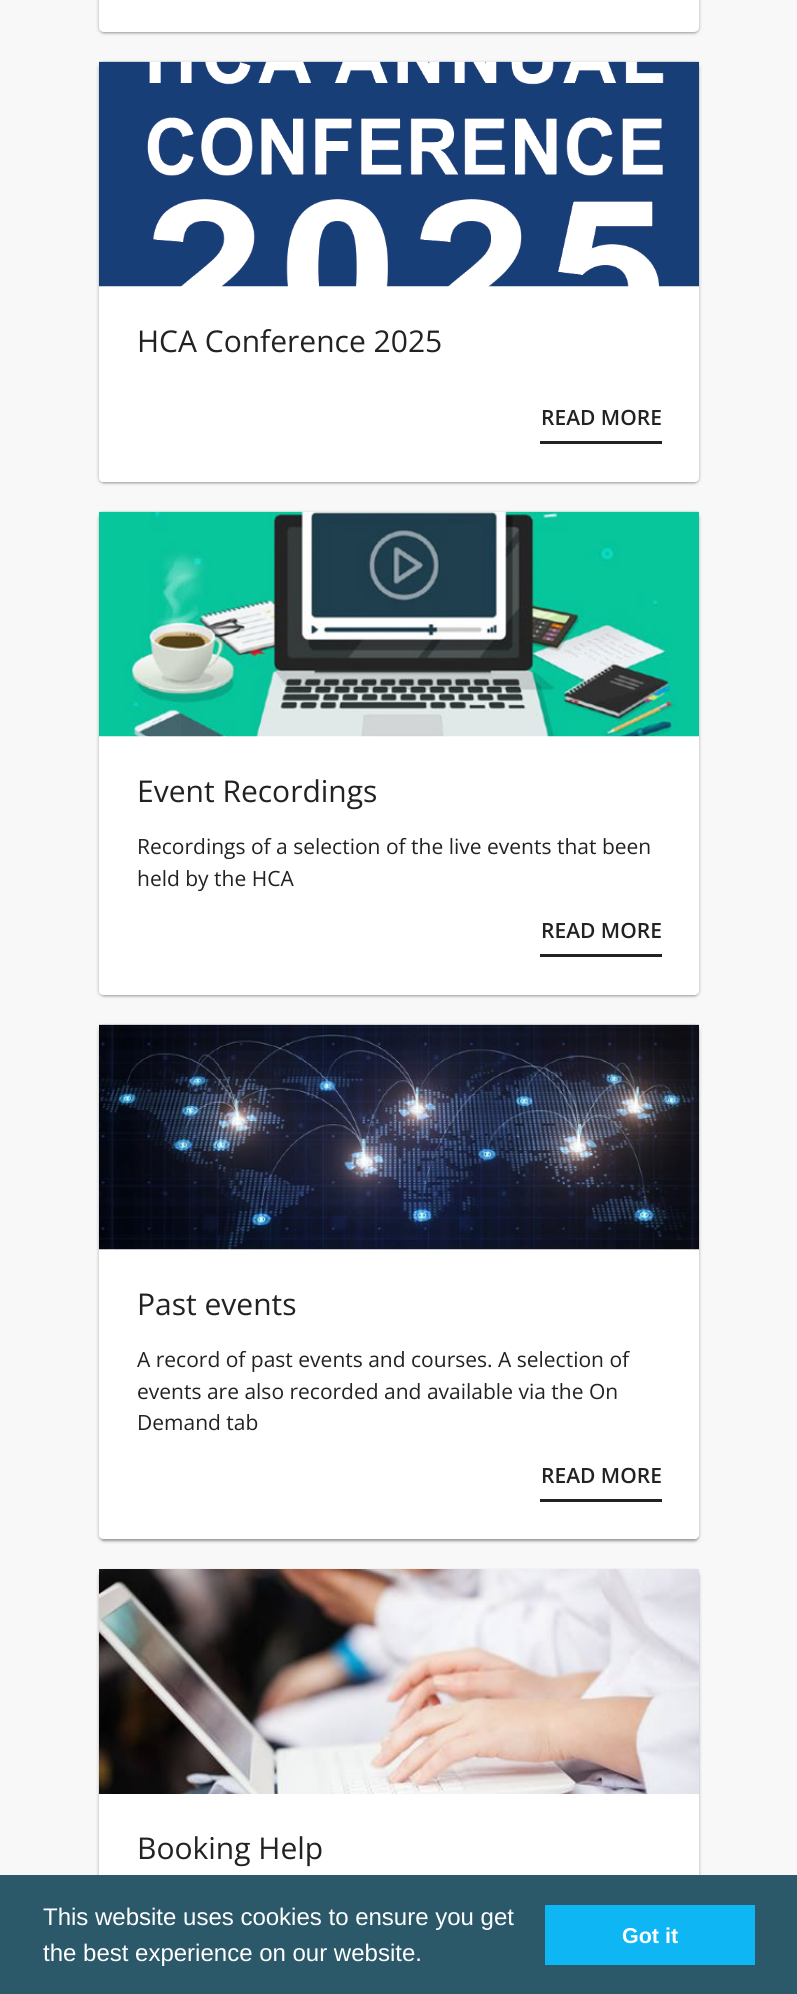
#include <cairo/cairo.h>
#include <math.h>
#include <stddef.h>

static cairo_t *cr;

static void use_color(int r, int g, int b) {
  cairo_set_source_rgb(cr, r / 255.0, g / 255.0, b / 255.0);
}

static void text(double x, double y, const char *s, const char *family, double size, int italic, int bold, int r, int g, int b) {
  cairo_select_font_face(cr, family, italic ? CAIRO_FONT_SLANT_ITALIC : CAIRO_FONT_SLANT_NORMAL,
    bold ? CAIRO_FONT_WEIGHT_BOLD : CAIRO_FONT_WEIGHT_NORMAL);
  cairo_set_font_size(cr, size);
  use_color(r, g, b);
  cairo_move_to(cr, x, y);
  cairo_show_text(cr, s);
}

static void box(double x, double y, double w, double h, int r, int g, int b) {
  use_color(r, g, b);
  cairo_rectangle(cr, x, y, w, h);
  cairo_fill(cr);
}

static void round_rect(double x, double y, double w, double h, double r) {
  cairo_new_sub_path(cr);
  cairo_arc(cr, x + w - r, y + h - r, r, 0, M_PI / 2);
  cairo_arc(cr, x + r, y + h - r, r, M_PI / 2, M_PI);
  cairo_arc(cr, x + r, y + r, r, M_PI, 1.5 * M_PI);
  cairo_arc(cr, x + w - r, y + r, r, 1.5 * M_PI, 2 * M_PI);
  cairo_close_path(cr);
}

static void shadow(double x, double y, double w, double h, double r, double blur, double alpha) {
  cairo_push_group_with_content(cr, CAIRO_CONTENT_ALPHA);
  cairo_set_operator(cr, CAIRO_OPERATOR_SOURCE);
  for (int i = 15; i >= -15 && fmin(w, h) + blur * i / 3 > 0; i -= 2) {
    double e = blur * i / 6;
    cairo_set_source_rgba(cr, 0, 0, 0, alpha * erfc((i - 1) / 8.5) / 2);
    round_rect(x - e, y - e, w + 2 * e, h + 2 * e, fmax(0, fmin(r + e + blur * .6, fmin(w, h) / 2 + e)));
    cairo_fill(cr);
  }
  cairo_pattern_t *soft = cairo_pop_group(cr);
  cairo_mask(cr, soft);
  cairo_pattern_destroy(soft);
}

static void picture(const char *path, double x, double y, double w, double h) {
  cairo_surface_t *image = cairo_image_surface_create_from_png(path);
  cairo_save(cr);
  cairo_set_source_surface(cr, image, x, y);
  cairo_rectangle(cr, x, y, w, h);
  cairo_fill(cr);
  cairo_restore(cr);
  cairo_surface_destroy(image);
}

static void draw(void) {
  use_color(248, 248, 248);
  cairo_paint(cr);
  use_color(0, 0, 0);
  shadow(101, -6, 597, 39, 3, 1, 0.12);
  shadow(99, -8, 600, 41, 5, 1, 0.14);
  shadow(99, -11, 600, 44, 5, 2, 0.2);
  use_color(255, 255, 255);
  cairo_new_path(cr);
  cairo_move_to(cr, 99, -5);
  cairo_line_to(cr, 699, -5);
  cairo_line_to(cr, 699, 27);
  cairo_curve_to(cr, 699, 30, 697, 32, 694, 32);
  cairo_line_to(cr, 104, 32);
  cairo_curve_to(cr, 101, 32, 99, 30, 99, 27);
  cairo_close_path(cr);
  cairo_fill(cr);
  use_color(0, 0, 0);
  shadow(101, 66, 597, 417, 3, 1, 0.12);
  shadow(99, 63, 600, 420, 5, 1, 0.14);
  shadow(99, 63, 600, 420, 5, 2, 0.2);
  use_color(255, 255, 255);
  cairo_new_path(cr);
  cairo_move_to(cr, 99, 62);
  cairo_line_to(cr, 699, 62);
  cairo_line_to(cr, 699, 477);
  cairo_curve_to(cr, 699, 480, 697, 482, 694, 482);
  cairo_line_to(cr, 104, 482);
  cairo_curve_to(cr, 101, 482, 99, 480, 99, 477);
  cairo_close_path(cr);
  cairo_fill(cr);
  picture("img_01.png", 99, 61, 600, 226);
  cairo_new_path(cr);
  cairo_move_to(cr, 99, 287);
  cairo_line_to(cr, 699, 287);
  cairo_line_to(cr, 699, 477);
  cairo_curve_to(cr, 699, 480, 697, 482, 694, 482);
  cairo_line_to(cr, 104, 482);
  cairo_curve_to(cr, 101, 482, 99, 480, 99, 477);
  cairo_close_path(cr);
  cairo_fill(cr);
  box(540, 441, 122, 3, 34, 34, 34);
  use_color(0, 0, 0);
  shadow(101, 516, 597, 480, 3, 1, 0.12);
  shadow(99, 513, 600, 483, 5, 1, 0.14);
  shadow(99, 513, 600, 483, 5, 2, 0.2);
  use_color(255, 255, 255);
  cairo_new_path(cr);
  cairo_move_to(cr, 99, 512);
  cairo_line_to(cr, 699, 512);
  cairo_line_to(cr, 699, 990);
  cairo_curve_to(cr, 699, 993, 697, 995, 694, 995);
  cairo_line_to(cr, 104, 995);
  cairo_curve_to(cr, 101, 995, 99, 993, 99, 990);
  cairo_close_path(cr);
  cairo_fill(cr);
  picture("img_02.png", 99, 511, 600, 226);
  cairo_new_path(cr);
  cairo_move_to(cr, 99, 737);
  cairo_line_to(cr, 699, 737);
  cairo_line_to(cr, 699, 990);
  cairo_curve_to(cr, 699, 993, 697, 995, 694, 995);
  cairo_line_to(cr, 104, 995);
  cairo_curve_to(cr, 101, 995, 99, 993, 99, 990);
  cairo_close_path(cr);
  cairo_fill(cr);
  box(540, 954, 122, 3, 34, 34, 34);
  use_color(0, 0, 0);
  shadow(101, 1029, 597, 512, 3, 1, 0.12);
  shadow(99, 1026, 600, 515, 5, 1, 0.14);
  shadow(99, 1026, 600, 515, 5, 2, 0.2);
  use_color(255, 255, 255);
  cairo_new_path(cr);
  cairo_move_to(cr, 99, 1025);
  cairo_line_to(cr, 699, 1025);
  cairo_line_to(cr, 699, 1534);
  cairo_curve_to(cr, 699, 1537, 697, 1539, 694, 1539);
  cairo_line_to(cr, 104, 1539);
  cairo_curve_to(cr, 101, 1539, 99, 1537, 99, 1534);
  cairo_close_path(cr);
  cairo_fill(cr);
  picture("img_03.png", 99, 1024, 600, 226);
  cairo_new_path(cr);
  cairo_move_to(cr, 99, 1250);
  cairo_line_to(cr, 699, 1250);
  cairo_line_to(cr, 699, 1534);
  cairo_curve_to(cr, 699, 1537, 697, 1539, 694, 1539);
  cairo_line_to(cr, 104, 1539);
  cairo_curve_to(cr, 101, 1539, 99, 1537, 99, 1534);
  cairo_close_path(cr);
  cairo_fill(cr);
  box(540, 1499, 122, 3, 34, 34, 34);
  use_color(0, 0, 0);
  shadow(99, 1571, 600, 420, 5, 1, 0.14);
  shadow(99, 1571, 600, 420, 5, 2, 0.2);
  picture("img_04.png", 99, 1569, 600, 225);
  box(99, 1794, 600, 81, 255, 255, 255);
  box(0, 1875, 797, 119, 43, 89, 106);
  box(545, 1905, 210, 60, 14, 182, 244);
  text(137, 352, "HCA Conference 2025", "Open Sans", 30, 0, 0, 34, 34, 34);
  text(541, 425, "READ MORE", "Open Sans SemiBold", 21, 0, 0, 34, 34, 34);
  text(137, 802, "Event Recordings", "Open Sans", 30, 0, 0, 34, 34, 34);
  text(137, 854, "Recordings of a selection of the live events that been", "Open Sans", 21, 0, 0, 34, 34, 34);
  text(137, 886, "held by the HCA", "Open Sans", 21, 0, 0, 34, 34, 34);
  text(541, 938, "READ MORE", "Open Sans SemiBold", 21, 0, 0, 34, 34, 34);
  text(137, 1315, "Past events", "Open Sans", 30, 0, 0, 34, 34, 34);
  text(137, 1367, "A record of past events and courses. A selection of", "Open Sans", 21, 0, 0, 34, 34, 34);
  text(137, 1399, "events are also recorded and available via the On", "Open Sans", 21, 0, 0, 34, 34, 34);
  text(137, 1430, "Demand tab", "Open Sans", 21, 0, 0, 34, 34, 34);
  text(541, 1483, "READ MORE", "Open Sans SemiBold", 21, 0, 0, 34, 34, 34);
  text(137, 1859, "Booking Help", "Open Sans", 30, 0, 0, 34, 34, 34);
  text(43, 1925, "This website uses cookies to ensure you get", "Liberation Sans", 24, 0, 0, 255, 255, 255);
  text(43, 1961, "the best experience on our website.", "Liberation Sans", 24, 0, 0, 255, 255, 255);
  text(622, 1943, "Got it", "Liberation Sans", 21.5, 0, 1, 255, 255, 255);
}

int main(void) {
  cairo_surface_t *surface = cairo_image_surface_create(CAIRO_FORMAT_RGB24, 797, 1994);
  cr = cairo_create(surface);
  cairo_font_options_t *options = cairo_font_options_create();
  cairo_font_options_set_hint_metrics(options, CAIRO_HINT_METRICS_OFF);
  cairo_font_options_set_hint_style(options, CAIRO_HINT_STYLE_NONE);
  cairo_set_font_options(cr, options);
  cairo_set_miter_limit(cr, 4);
  draw();
  cairo_surface_write_to_png(surface, "out.png");
  cairo_font_options_destroy(options);
  cairo_destroy(cr);
  cairo_surface_destroy(surface);
  return 0;
}
